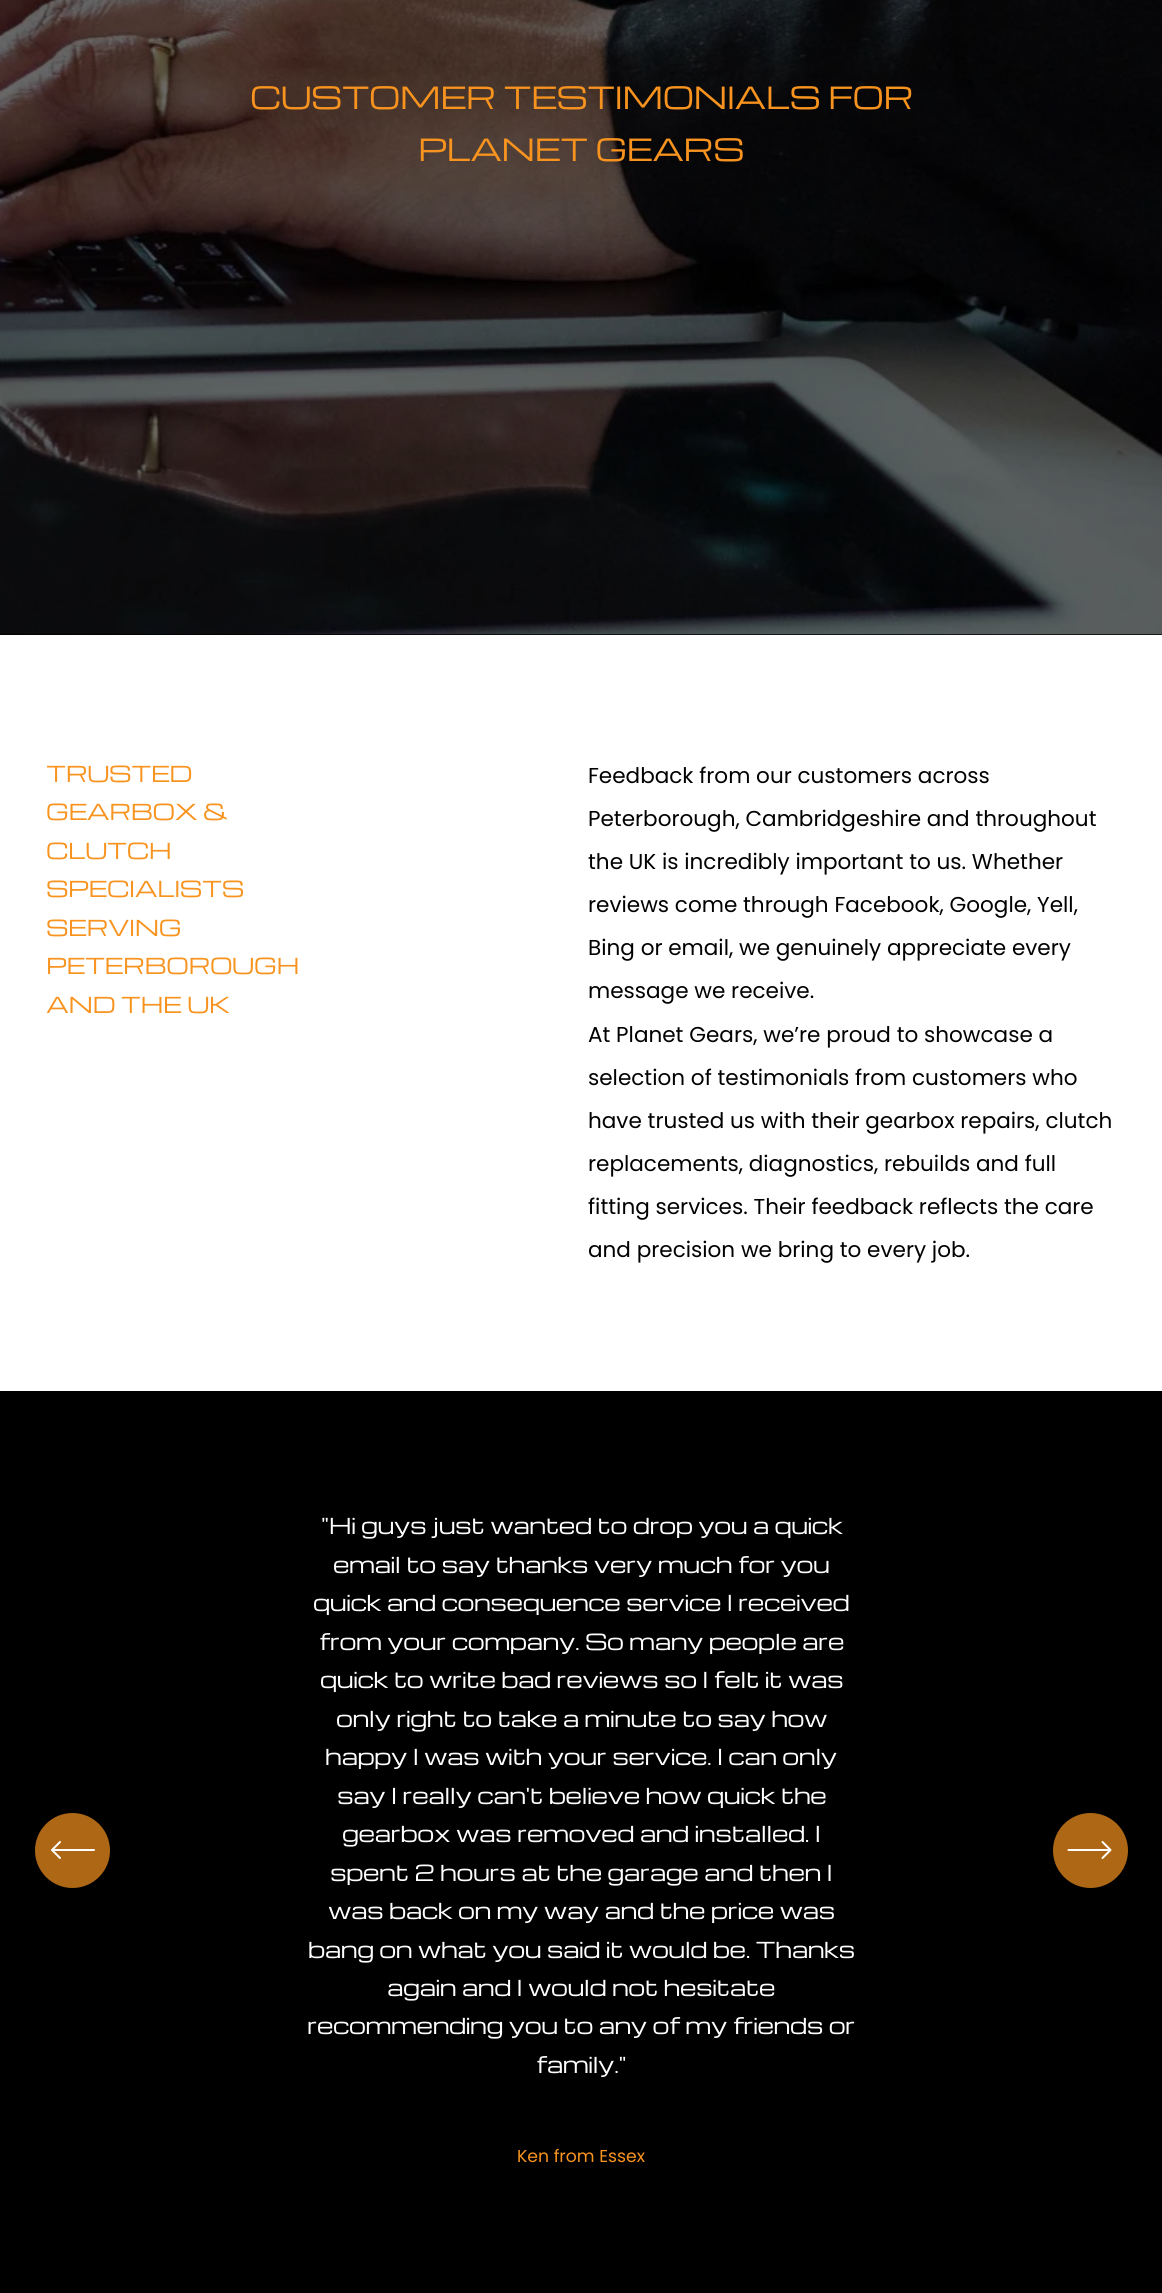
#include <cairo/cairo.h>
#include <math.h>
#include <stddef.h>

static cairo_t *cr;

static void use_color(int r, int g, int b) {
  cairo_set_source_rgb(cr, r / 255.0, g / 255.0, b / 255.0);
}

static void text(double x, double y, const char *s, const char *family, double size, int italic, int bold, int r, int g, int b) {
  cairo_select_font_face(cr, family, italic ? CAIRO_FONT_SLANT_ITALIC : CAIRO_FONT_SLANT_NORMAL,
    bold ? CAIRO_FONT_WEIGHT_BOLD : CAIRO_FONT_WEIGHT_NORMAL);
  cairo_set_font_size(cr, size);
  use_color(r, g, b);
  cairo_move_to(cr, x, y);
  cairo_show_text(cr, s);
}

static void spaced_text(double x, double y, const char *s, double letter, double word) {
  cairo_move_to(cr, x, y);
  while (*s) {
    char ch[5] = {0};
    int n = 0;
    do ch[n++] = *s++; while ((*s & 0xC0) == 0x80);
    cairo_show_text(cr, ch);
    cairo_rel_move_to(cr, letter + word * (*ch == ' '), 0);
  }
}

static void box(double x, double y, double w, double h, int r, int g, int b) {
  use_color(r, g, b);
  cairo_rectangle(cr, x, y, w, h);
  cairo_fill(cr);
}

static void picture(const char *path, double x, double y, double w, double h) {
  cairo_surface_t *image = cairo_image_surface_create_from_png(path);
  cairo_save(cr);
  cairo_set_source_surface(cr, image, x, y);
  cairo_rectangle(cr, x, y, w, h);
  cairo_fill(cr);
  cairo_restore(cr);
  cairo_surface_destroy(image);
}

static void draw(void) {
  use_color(255, 255, 255);
  cairo_paint(cr);
  box(0, 634, 1162, 1, 0, 0, 0);
  picture("img_01.png", 0, 0, 1162, 635);
  box(0, 1391, 1162, 902, 0, 0, 0);
  use_color(173, 103, 21);
  cairo_arc(cr, 72.5, 1850.5, 37.5, 0, 2 * M_PI);
  cairo_fill(cr);
  cairo_new_path(cr);
  cairo_move_to(cr, 60, 1858);
  cairo_line_to(cr, 52, 1850);
  cairo_line_to(cr, 60, 1842);
  cairo_move_to(cr, 94, 1850);
  cairo_line_to(cr, 53.5, 1850);
  use_color(255, 255, 255);
  cairo_set_line_cap(cr, CAIRO_LINE_CAP_ROUND);
  cairo_set_line_join(cr, CAIRO_LINE_JOIN_ROUND);
  cairo_stroke(cr);
  use_color(173, 103, 21);
  cairo_arc(cr, 1090.5, 1850.5, 37.5, 0, 2 * M_PI);
  cairo_fill(cr);
  cairo_new_path(cr);
  cairo_move_to(cr, 1102.5, 1842);
  cairo_line_to(cr, 1110.5, 1850);
  cairo_line_to(cr, 1102.5, 1858);
  cairo_move_to(cr, 1068.5, 1850);
  cairo_line_to(cr, 1109, 1850);
  use_color(255, 255, 255);
  cairo_stroke(cr);
  cairo_select_font_face(cr, "Michroma", CAIRO_FONT_SLANT_NORMAL, CAIRO_FONT_WEIGHT_NORMAL);
  cairo_set_font_size(cr, 29.9);
  use_color(247, 147, 30);
  spaced_text(250, 109, "CUSTOMER TESTIMONIALS FOR", -0.6, 0);
  spaced_text(418, 161, "PLANET GEARS", -0.6, 0);
  cairo_set_font_size(cr, 21.55);
  spaced_text(46, 782, "TRUSTED", -0.45, 0);
  spaced_text(46, 820, "GEARBOX &", -0.45, 0);
  spaced_text(46, 859, "CLUTCH", -0.45, 0);
  spaced_text(46, 897, "SPECIALISTS", -0.45, 0);
  spaced_text(46, 936, "SERVING", -0.45, 0);
  spaced_text(46, 974, "PETERBOROUGH", -0.45, 0);
  spaced_text(46, 1013, "AND THE UK", -0.45, 0);
  text(588, 783, "Feedback from our customers across", "Poppins", 21.55, 0, 0, 0, 0, 0);
  text(588, 826, "Peterborough, Cambridgeshire and throughout", "Poppins", 21.55, 0, 0, 0, 0, 0);
  text(588, 869, "the UK is incredibly important to us. Whether", "Poppins", 21.55, 0, 0, 0, 0, 0);
  text(588, 912, "reviews come through Facebook, Google, Yell,", "Poppins", 21.55, 0, 0, 0, 0, 0);
  text(588, 955, "Bing or email, we genuinely appreciate every", "Poppins", 21.55, 0, 0, 0, 0, 0);
  text(588, 998, "message we receive.", "Poppins", 21.55, 0, 0, 0, 0, 0);
  text(588, 1042, "At Planet Gears, we’re proud to showcase a", "Poppins", 21.55, 0, 0, 0, 0, 0);
  text(588, 1085, "selection of testimonials from customers who", "Poppins", 21.55, 0, 0, 0, 0, 0);
  text(588, 1128, "have trusted us with their gearbox repairs, clutch", "Poppins", 21.55, 0, 0, 0, 0, 0);
  text(588, 1171, "replacements, diagnostics, rebuilds and full", "Poppins", 21.55, 0, 0, 0, 0, 0);
  text(588, 1214, "fitting services. Their feedback reflects the care", "Poppins", 21.55, 0, 0, 0, 0, 0);
  text(588, 1257, "and precision we bring to every job.", "Poppins", 21.55, 0, 0, 0, 0, 0);
  cairo_select_font_face(cr, "Michroma", CAIRO_FONT_SLANT_NORMAL, CAIRO_FONT_WEIGHT_NORMAL);
  use_color(255, 255, 255);
  spaced_text(321, 1534, "\"Hi guys just wanted to drop you a quick", -0.45, 0);
  spaced_text(333, 1573, "email to say thanks very much for you", -0.45, 0);
  spaced_text(313, 1611, "quick and consequence service I received", -0.45, 0);
  spaced_text(319, 1650, "from your company. So many people are", -0.45, 0);
  spaced_text(320, 1688, "quick to write bad reviews so I felt it was", -0.45, 0);
  spaced_text(336, 1727, "only right to take a minute to say how", -0.45, 0);
  spaced_text(325, 1765, "happy I was with your service. I can only", -0.45, 0);
  spaced_text(337, 1804, "say I really can't believe how quick the", -0.45, 0);
  spaced_text(342, 1842, "gearbox was removed and installed. I", -0.45, 0);
  spaced_text(330, 1881, "spent 2 hours at the garage and then I", -0.45, 0);
  spaced_text(328, 1919, "was back on my way and the price was", -0.45, 0);
  spaced_text(308, 1958, "bang on what you said it would be. Thanks", -0.45, 0);
  spaced_text(387, 1996, "again and I would not hesitate", -0.45, 0);
  spaced_text(307, 2034, "recommending you to any of my friends or", -0.45, 0);
  spaced_text(536, 2073, "family.\"", -0.45, 0);
  text(517, 2162, "Ken from Essex", "Poppins", 17.25, 0, 0, 247, 147, 30);
}

int main(void) {
  cairo_surface_t *surface = cairo_image_surface_create(CAIRO_FORMAT_RGB24, 1162, 2293);
  cr = cairo_create(surface);
  cairo_font_options_t *options = cairo_font_options_create();
  cairo_font_options_set_hint_metrics(options, CAIRO_HINT_METRICS_OFF);
  cairo_font_options_set_hint_style(options, CAIRO_HINT_STYLE_NONE);
  cairo_set_font_options(cr, options);
  cairo_set_miter_limit(cr, 4);
  draw();
  cairo_surface_write_to_png(surface, "out.png");
  cairo_font_options_destroy(options);
  cairo_destroy(cr);
  cairo_surface_destroy(surface);
  return 0;
}
